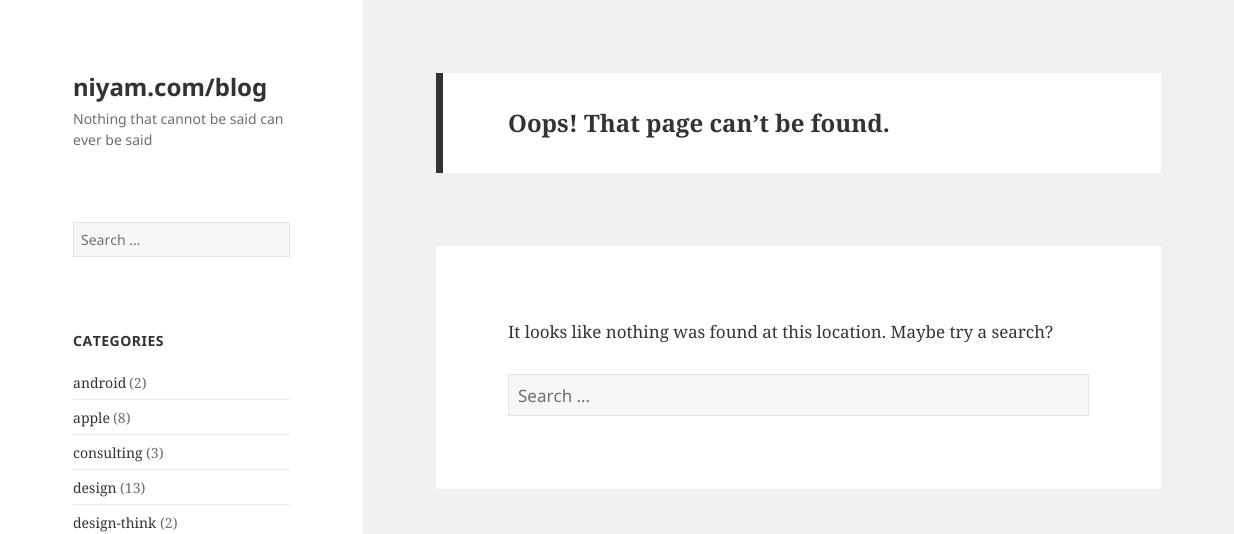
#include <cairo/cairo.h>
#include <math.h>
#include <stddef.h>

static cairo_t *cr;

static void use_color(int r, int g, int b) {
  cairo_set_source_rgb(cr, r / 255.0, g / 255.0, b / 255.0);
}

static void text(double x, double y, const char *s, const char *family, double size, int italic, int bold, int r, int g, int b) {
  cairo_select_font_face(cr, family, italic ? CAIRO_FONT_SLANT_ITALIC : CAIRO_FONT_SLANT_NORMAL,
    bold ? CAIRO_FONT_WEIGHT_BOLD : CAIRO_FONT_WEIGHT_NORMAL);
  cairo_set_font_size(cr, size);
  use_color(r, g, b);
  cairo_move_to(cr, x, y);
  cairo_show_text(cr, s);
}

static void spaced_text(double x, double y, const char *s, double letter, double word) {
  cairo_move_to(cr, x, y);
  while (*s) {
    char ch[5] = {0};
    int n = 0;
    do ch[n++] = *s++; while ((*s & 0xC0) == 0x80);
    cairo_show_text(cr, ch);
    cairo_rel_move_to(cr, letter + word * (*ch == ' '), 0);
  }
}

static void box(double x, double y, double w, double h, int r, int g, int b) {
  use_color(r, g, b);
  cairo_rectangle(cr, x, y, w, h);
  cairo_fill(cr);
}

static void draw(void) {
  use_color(241, 241, 241);
  cairo_paint(cr);
  box(0, 0, 363, 534, 255, 255, 255);
  use_color(247, 247, 247);
  cairo_rectangle(cr, 73.5, 222.5, 216, 34);
  cairo_fill_preserve(cr);
  use_color(227, 227, 227);
  cairo_set_line_width(cr, 1);
  cairo_stroke(cr);
  box(73, 399, 217, 1, 235, 235, 235);
  box(73, 434, 217, 1, 235, 235, 235);
  box(73, 469, 217, 1, 235, 235, 235);
  box(73, 504, 217, 1, 235, 235, 235);
  box(443, 73, 718, 100, 255, 255, 255);
  box(436, 73, 7, 100, 51, 51, 51);
  box(436, 246, 725, 243, 255, 255, 255);
  use_color(247, 247, 247);
  cairo_rectangle(cr, 508.5, 374.5, 580, 41);
  cairo_fill_preserve(cr);
  use_color(227, 227, 227);
  cairo_stroke(cr);
  text(73, 96, "niyam.com/blog", "Noto Sans", 24, 0, 1, 51, 51, 51);
  text(73, 124, "Nothing that cannot be said can", "Noto Sans", 14, 0, 0, 110, 110, 110);
  text(73, 145, "ever be said", "Noto Sans", 14, 0, 0, 110, 110, 110);
  text(81, 245, "Search …", "Noto Sans", 14, 0, 0, 110, 110, 110);
  cairo_select_font_face(cr, "Noto Sans", CAIRO_FONT_SLANT_NORMAL, CAIRO_FONT_WEIGHT_BOLD);
  use_color(51, 51, 51);
  spaced_text(73, 346, "CATEGORIES", 0.5, 0);
  text(73, 388, "android", "Noto Serif", 14, 0, 0, 51, 51, 51);
  text(129, 388, "(2)", "Noto Serif", 14, 0, 0, 110, 110, 110);
  text(73, 423, "apple", "Noto Serif", 14, 0, 0, 51, 51, 51);
  text(113, 423, "(8)", "Noto Serif", 14, 0, 0, 110, 110, 110);
  text(73, 458, "consulting", "Noto Serif", 14, 0, 0, 51, 51, 51);
  text(146, 458, "(3)", "Noto Serif", 14, 0, 0, 110, 110, 110);
  text(73, 493, "design", "Noto Serif", 14, 0, 0, 51, 51, 51);
  text(120, 493, "(13)", "Noto Serif", 14, 0, 0, 110, 110, 110);
  text(73, 528, "design-think", "Noto Serif", 14, 0, 0, 51, 51, 51);
  text(160, 528, "(2)", "Noto Serif", 14, 0, 0, 110, 110, 110);
  text(508, 132, "Oops! That page can’t be found.", "Noto Serif", 24, 0, 1, 51, 51, 51);
  text(508, 338, "It looks like nothing was found at this location. Maybe try a search?", "Noto Serif", 17, 0, 0, 51, 51, 51);
  text(518, 402, "Search …", "Noto Sans", 17, 0, 0, 110, 110, 110);
}

int main(void) {
  cairo_surface_t *surface = cairo_image_surface_create(CAIRO_FORMAT_RGB24, 1234, 534);
  cr = cairo_create(surface);
  cairo_font_options_t *options = cairo_font_options_create();
  cairo_font_options_set_hint_metrics(options, CAIRO_HINT_METRICS_OFF);
  cairo_font_options_set_hint_style(options, CAIRO_HINT_STYLE_NONE);
  cairo_set_font_options(cr, options);
  cairo_set_miter_limit(cr, 4);
  draw();
  cairo_surface_write_to_png(surface, "out.png");
  cairo_font_options_destroy(options);
  cairo_destroy(cr);
  cairo_surface_destroy(surface);
  return 0;
}
